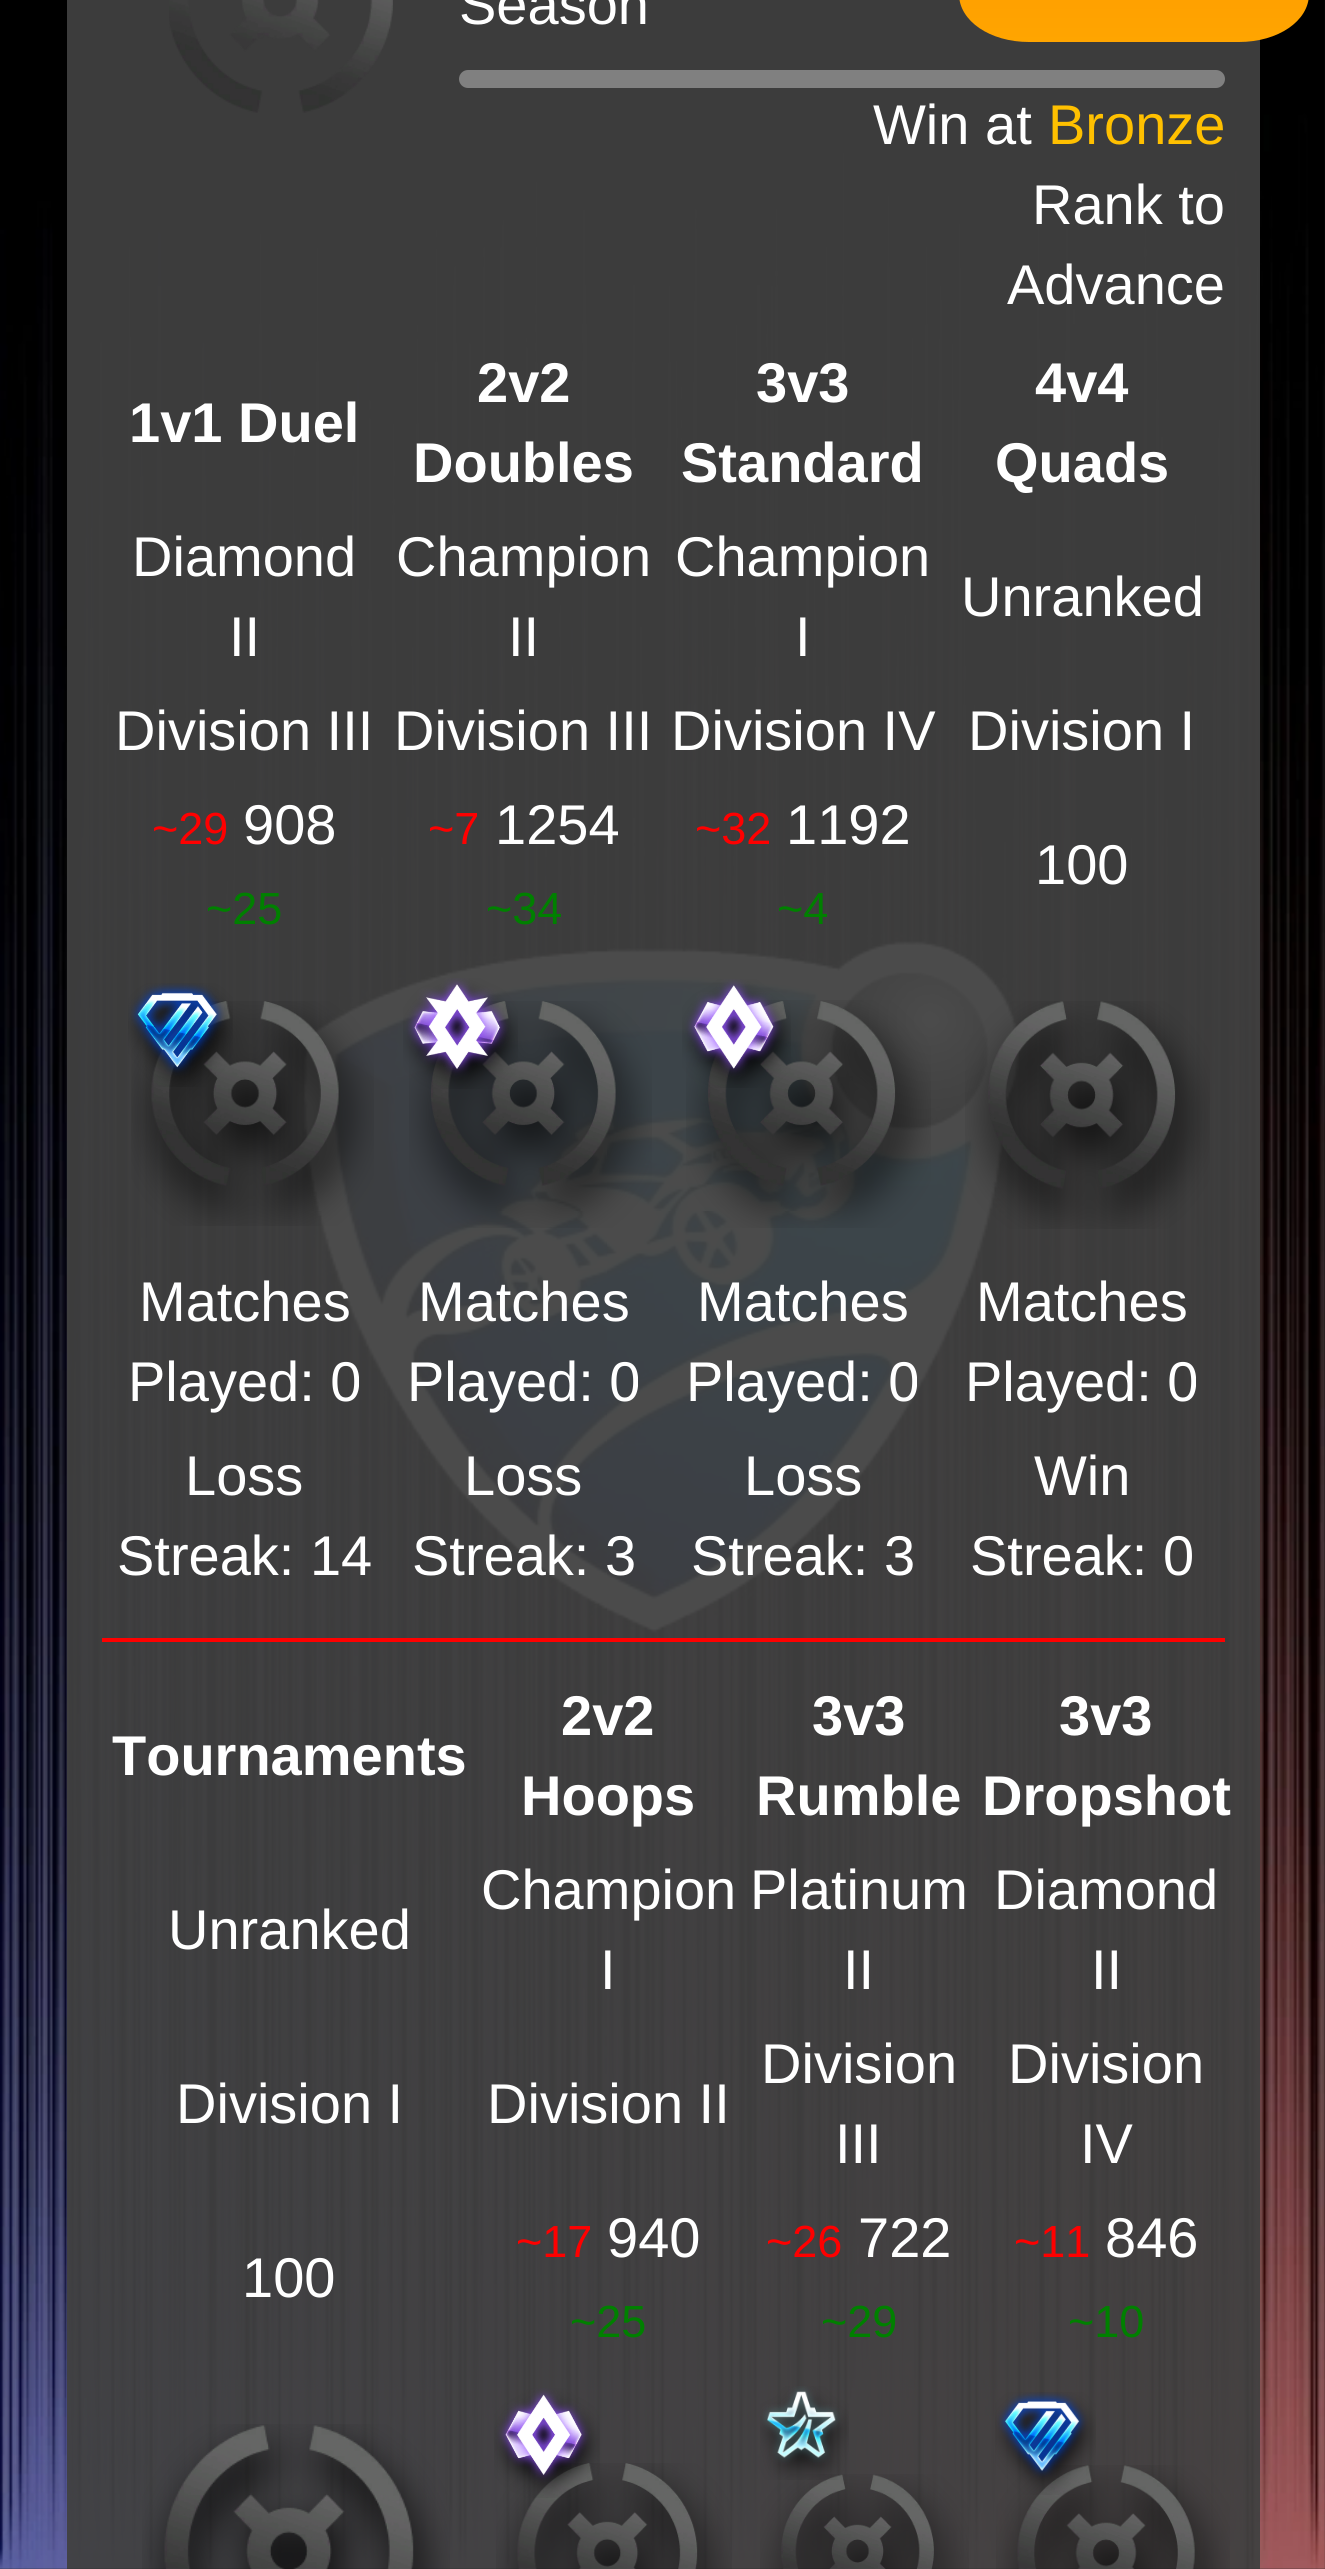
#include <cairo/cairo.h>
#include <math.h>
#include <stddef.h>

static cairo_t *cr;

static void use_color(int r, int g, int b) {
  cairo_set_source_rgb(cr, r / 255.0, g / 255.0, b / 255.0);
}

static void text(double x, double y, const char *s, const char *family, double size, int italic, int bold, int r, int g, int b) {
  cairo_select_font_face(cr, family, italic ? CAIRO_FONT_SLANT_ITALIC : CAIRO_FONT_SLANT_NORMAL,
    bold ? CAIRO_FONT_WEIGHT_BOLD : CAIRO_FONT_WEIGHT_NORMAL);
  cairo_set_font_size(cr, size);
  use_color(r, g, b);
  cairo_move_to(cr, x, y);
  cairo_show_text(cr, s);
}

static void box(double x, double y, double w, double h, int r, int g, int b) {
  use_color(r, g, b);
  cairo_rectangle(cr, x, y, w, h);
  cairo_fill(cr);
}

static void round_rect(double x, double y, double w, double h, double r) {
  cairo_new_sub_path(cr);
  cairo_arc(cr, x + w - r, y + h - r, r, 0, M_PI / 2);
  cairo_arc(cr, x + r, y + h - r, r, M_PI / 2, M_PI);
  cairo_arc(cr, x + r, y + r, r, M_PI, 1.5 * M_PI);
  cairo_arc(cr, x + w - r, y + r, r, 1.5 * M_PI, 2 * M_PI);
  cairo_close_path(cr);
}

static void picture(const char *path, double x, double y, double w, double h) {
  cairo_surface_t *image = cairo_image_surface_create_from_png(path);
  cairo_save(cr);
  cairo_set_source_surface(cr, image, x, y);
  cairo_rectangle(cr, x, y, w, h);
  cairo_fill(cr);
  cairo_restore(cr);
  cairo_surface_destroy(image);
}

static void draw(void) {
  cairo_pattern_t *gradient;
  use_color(40, 40, 40);
  cairo_paint(cr);
  picture("img_01.png", 0, 0, 1325, 2569);
  picture("img_02.png", 169, 0, 224, 113);
  use_color(128, 128, 128);
  round_rect(459, 70, 766, 18, 9);
  cairo_fill(cr);
  picture("img_04.png", 131, 1001, 243, 225);
  picture("img_03.png", 128, 983, 105, 104);
  picture("img_06.png", 409, 1001, 243, 227);
  picture("img_05.png", 403, 978, 115, 111);
  picture("img_08.png", 686, 1000, 245, 228);
  picture("img_07.png", 682, 979, 109, 109);
  picture("img_09.png", 965, 1001, 245, 228);
  box(102, 1638, 1123, 4, 255, 0, 0);
  picture("img_10.png", 142, 2424, 308, 145);
  picture("img_12.png", 496, 2463, 236, 106);
  picture("img_11.png", 494, 2388, 106, 110);
  picture("img_14.png", 760, 2474, 209, 95);
  picture("img_13.png", 760, 2386, 89, 94);
  picture("img_16.png", 996, 2465, 234, 104);
  picture("img_15.png", 995, 2392, 101, 103);
  gradient = cairo_pattern_create_linear(1134, -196, 1134, 42);
  cairo_pattern_add_color_stop_rgba(gradient, 0, 1, 0.549, 0, 1);
  cairo_pattern_add_color_stop_rgba(gradient, 1, 1, 0.647, 0, 1);
  cairo_set_source(cr, gradient);
  cairo_pattern_destroy(gradient);
  cairo_new_path(cr);
  cairo_move_to(cr, 959, -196);
  cairo_line_to(cr, 1309, -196);
  cairo_line_to(cr, 1309, -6);
  cairo_curve_to(cr, 1309, 21, 1278, 42, 1239, 42);
  cairo_line_to(cr, 1029, 42);
  cairo_curve_to(cr, 990, 42, 959, 21, 959, -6);
  cairo_close_path(cr);
  cairo_fill(cr);
  text(459, 24, "Season", "Liberation Sans", 56, 0, 0, 255, 255, 255);
  text(873, 144, "Win at", "Liberation Sans", 56, 0, 0, 255, 255, 255);
  text(1048, 144, "Bronze", "Liberation Sans", 56, 0, 0, 255, 192, 0);
  text(1032, 224, "Rank to", "Liberation Sans", 56, 0, 0, 255, 255, 255);
  text(1007, 304, "Advance", "Liberation Sans", 56, 0, 0, 255, 255, 255);
  text(129, 442, "1v1 Duel", "Liberation Sans", 56, 0, 1, 255, 255, 255);
  text(477, 402, "2v2", "Liberation Sans", 56, 0, 1, 255, 255, 255);
  text(413, 482, "Doubles", "Liberation Sans", 56, 0, 1, 255, 255, 255);
  text(756, 402, "3v3", "Liberation Sans", 56, 0, 1, 255, 255, 255);
  text(681, 482, "Standard", "Liberation Sans", 56, 0, 1, 255, 255, 255);
  text(1035, 402, "4v4", "Liberation Sans", 56, 0, 1, 255, 255, 255);
  text(995, 482, "Quads", "Liberation Sans", 56, 0, 1, 255, 255, 255);
  text(132, 576, "Diamond", "Liberation Sans", 56, 0, 0, 255, 255, 255);
  text(229, 656, "II", "Liberation Sans", 56, 0, 0, 255, 255, 255);
  text(396, 576, "Champion", "Liberation Sans", 56, 0, 0, 255, 255, 255);
  text(508, 656, "II", "Liberation Sans", 56, 0, 0, 255, 255, 255);
  text(675, 576, "Champion", "Liberation Sans", 56, 0, 0, 255, 255, 255);
  text(795, 656, "I", "Liberation Sans", 56, 0, 0, 255, 255, 255);
  text(961, 616, "Unranked", "Liberation Sans", 56, 0, 0, 255, 255, 255);
  text(115, 750, "Division III", "Liberation Sans", 56, 0, 0, 255, 255, 255);
  text(394, 750, "Division III", "Liberation Sans", 56, 0, 0, 255, 255, 255);
  text(671, 750, "Division IV", "Liberation Sans", 56, 0, 0, 255, 255, 255);
  text(968, 750, "Division I", "Liberation Sans", 56, 0, 0, 255, 255, 255);
  text(152, 844, "~29", "Liberation Sans", 45, 0, 0, 255, 0, 0);
  text(243, 844, "908", "Liberation Sans", 56, 0, 0, 255, 255, 255);
  text(206, 924, "~25", "Liberation Sans", 45, 0, 0, 0, 128, 0);
  text(428, 844, "~7", "Liberation Sans", 45, 0, 0, 255, 0, 0);
  text(495, 844, "1254", "Liberation Sans", 56, 0, 0, 255, 255, 255);
  text(486, 924, "~34", "Liberation Sans", 45, 0, 0, 0, 128, 0);
  text(695, 844, "~32", "Liberation Sans", 45, 0, 0, 255, 0, 0);
  text(786, 844, "1192", "Liberation Sans", 56, 0, 0, 255, 255, 255);
  text(777, 924, "~4", "Liberation Sans", 45, 0, 0, 0, 128, 0);
  text(1035, 884, "100", "Liberation Sans", 56, 0, 0, 255, 255, 255);
  text(139, 1321, "Matches", "Liberation Sans", 56, 0, 0, 255, 255, 255);
  text(128, 1401, "Played: 0", "Liberation Sans", 56, 0, 0, 255, 255, 255);
  text(418, 1321, "Matches", "Liberation Sans", 56, 0, 0, 255, 255, 255);
  text(407, 1401, "Played: 0", "Liberation Sans", 56, 0, 0, 255, 255, 255);
  text(697, 1321, "Matches", "Liberation Sans", 56, 0, 0, 255, 255, 255);
  text(686, 1401, "Played: 0", "Liberation Sans", 56, 0, 0, 255, 255, 255);
  text(976, 1321, "Matches", "Liberation Sans", 56, 0, 0, 255, 255, 255);
  text(965, 1401, "Played: 0", "Liberation Sans", 56, 0, 0, 255, 255, 255);
  text(185, 1495, "Loss", "Liberation Sans", 56, 0, 0, 255, 255, 255);
  text(117, 1575, "Streak: 14", "Liberation Sans", 56, 0, 0, 255, 255, 255);
  text(464, 1495, "Loss", "Liberation Sans", 56, 0, 0, 255, 255, 255);
  text(412, 1575, "Streak: 3", "Liberation Sans", 56, 0, 0, 255, 255, 255);
  text(744, 1495, "Loss", "Liberation Sans", 56, 0, 0, 255, 255, 255);
  text(691, 1575, "Streak: 3", "Liberation Sans", 56, 0, 0, 255, 255, 255);
  text(1034, 1495, "Win", "Liberation Sans", 56, 0, 0, 255, 255, 255);
  text(970, 1575, "Streak: 0", "Liberation Sans", 56, 0, 0, 255, 255, 255);
  text(112, 1775, "Tournaments", "Liberation Sans", 56, 0, 1, 255, 255, 255);
  text(561, 1735, "2v2", "Liberation Sans", 56, 0, 1, 255, 255, 255);
  text(521, 1815, "Hoops", "Liberation Sans", 56, 0, 1, 255, 255, 255);
  text(812, 1735, "3v3", "Liberation Sans", 56, 0, 1, 255, 255, 255);
  text(756, 1815, "Rumble", "Liberation Sans", 56, 0, 1, 255, 255, 255);
  text(1059, 1735, "3v3", "Liberation Sans", 56, 0, 1, 255, 255, 255);
  text(982, 1815, "Dropshot", "Liberation Sans", 56, 0, 1, 255, 255, 255);
  text(168, 1949, "Unranked", "Liberation Sans", 56, 0, 0, 255, 255, 255);
  text(481, 1909, "Champion", "Liberation Sans", 56, 0, 0, 255, 255, 255);
  text(600, 1989, "I", "Liberation Sans", 56, 0, 0, 255, 255, 255);
  text(750, 1909, "Platinum", "Liberation Sans", 56, 0, 0, 255, 255, 255);
  text(843, 1989, "II", "Liberation Sans", 56, 0, 0, 255, 255, 255);
  text(994, 1909, "Diamond", "Liberation Sans", 56, 0, 0, 255, 255, 255);
  text(1091, 1989, "II", "Liberation Sans", 56, 0, 0, 255, 255, 255);
  text(176, 2123, "Division I", "Liberation Sans", 56, 0, 0, 255, 255, 255);
  text(487, 2123, "Division II", "Liberation Sans", 56, 0, 0, 255, 255, 255);
  text(761, 2083, "Division", "Liberation Sans", 56, 0, 0, 255, 255, 255);
  text(835, 2163, "III", "Liberation Sans", 56, 0, 0, 255, 255, 255);
  text(1008, 2083, "Division", "Liberation Sans", 56, 0, 0, 255, 255, 255);
  text(1080, 2163, "IV", "Liberation Sans", 56, 0, 0, 255, 255, 255);
  text(242, 2297, "100", "Liberation Sans", 56, 0, 0, 255, 255, 255);
  text(516, 2257, "~17", "Liberation Sans", 45, 0, 0, 255, 0, 0);
  text(607, 2257, "940", "Liberation Sans", 56, 0, 0, 255, 255, 255);
  text(570, 2337, "~25", "Liberation Sans", 45, 0, 0, 0, 128, 0);
  text(766, 2257, "~26", "Liberation Sans", 45, 0, 0, 255, 0, 0);
  text(858, 2257, "722", "Liberation Sans", 56, 0, 0, 255, 255, 255);
  text(821, 2337, "~29", "Liberation Sans", 45, 0, 0, 0, 128, 0);
  text(1014, 2257, "~11", "Liberation Sans", 45, 0, 0, 255, 0, 0);
  text(1105, 2257, "846", "Liberation Sans", 56, 0, 0, 255, 255, 255);
  text(1068, 2337, "~10", "Liberation Sans", 45, 0, 0, 0, 128, 0);
}

int main(void) {
  cairo_surface_t *surface = cairo_image_surface_create(CAIRO_FORMAT_RGB24, 1325, 2569);
  cr = cairo_create(surface);
  cairo_font_options_t *options = cairo_font_options_create();
  cairo_font_options_set_hint_metrics(options, CAIRO_HINT_METRICS_OFF);
  cairo_font_options_set_hint_style(options, CAIRO_HINT_STYLE_NONE);
  cairo_set_font_options(cr, options);
  cairo_set_miter_limit(cr, 4);
  draw();
  cairo_surface_write_to_png(surface, "out.png");
  cairo_font_options_destroy(options);
  cairo_destroy(cr);
  cairo_surface_destroy(surface);
  return 0;
}
